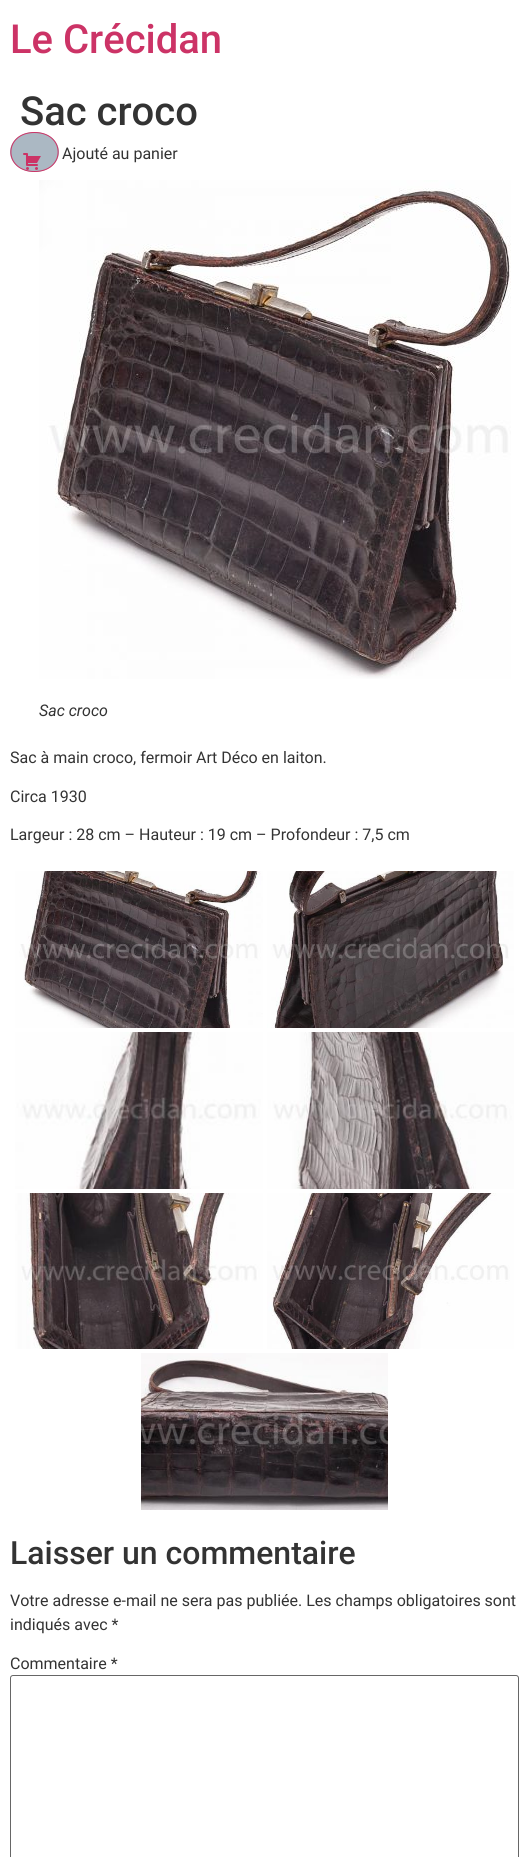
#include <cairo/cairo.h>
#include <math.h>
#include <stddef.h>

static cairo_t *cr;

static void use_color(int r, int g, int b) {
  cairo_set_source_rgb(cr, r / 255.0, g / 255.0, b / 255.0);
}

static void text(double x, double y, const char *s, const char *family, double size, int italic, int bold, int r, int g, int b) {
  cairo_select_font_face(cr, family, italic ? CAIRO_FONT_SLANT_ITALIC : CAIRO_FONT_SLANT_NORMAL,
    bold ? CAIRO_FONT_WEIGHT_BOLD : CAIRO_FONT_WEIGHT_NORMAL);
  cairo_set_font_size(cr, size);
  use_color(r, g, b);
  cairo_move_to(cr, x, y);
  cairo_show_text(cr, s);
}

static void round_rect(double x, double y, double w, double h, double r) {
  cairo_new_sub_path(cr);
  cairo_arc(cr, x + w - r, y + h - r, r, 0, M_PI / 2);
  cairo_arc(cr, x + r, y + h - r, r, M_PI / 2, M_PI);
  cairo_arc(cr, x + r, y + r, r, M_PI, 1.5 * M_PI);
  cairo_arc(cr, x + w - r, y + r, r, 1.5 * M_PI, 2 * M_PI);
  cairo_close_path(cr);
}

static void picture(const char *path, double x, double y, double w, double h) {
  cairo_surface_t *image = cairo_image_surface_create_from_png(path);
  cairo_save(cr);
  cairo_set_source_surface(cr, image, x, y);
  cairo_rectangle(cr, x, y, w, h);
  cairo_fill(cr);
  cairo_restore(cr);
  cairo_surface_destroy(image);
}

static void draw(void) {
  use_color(255, 255, 255);
  cairo_paint(cr);
  use_color(171, 184, 195);
  cairo_new_path(cr);
  cairo_move_to(cr, 34.5, 132);
  cairo_curve_to(cr, 48, 132, 59, 141, 59, 152);
  cairo_curve_to(cr, 59, 163, 48, 172, 34.5, 172);
  cairo_curve_to(cr, 21, 172, 10, 163, 10, 152);
  cairo_curve_to(cr, 10, 141, 21, 132, 34.5, 132);
  cairo_close_path(cr);
  cairo_fill(cr);
  cairo_new_path(cr);
  cairo_move_to(cr, 34.5, 132.5);
  cairo_curve_to(cr, 66, 132.5, 66, 171.5, 34.5, 171.5);
  cairo_curve_to(cr, 3, 171.5, 3, 132.5, 34.5, 132.5);
  cairo_close_path(cr);
  use_color(204, 51, 102);
  cairo_set_line_width(cr, 1);
  cairo_stroke(cr);
  picture("img_01.png", 23, 153, 18, 17);
  picture("img_02.png", 39, 180, 472, 499);
  picture("img_03.png", 15, 871, 248, 157);
  picture("img_04.png", 267, 871, 247, 157);
  picture("img_05.png", 15, 1032, 248, 157);
  picture("img_06.png", 267, 1032, 247, 157);
  picture("img_07.png", 15, 1193, 248, 156);
  picture("img_08.png", 267, 1193, 247, 156);
  picture("img_09.png", 141, 1353, 247, 157);
  round_rect(10.5, 1675.5, 508, 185, 2.5);
  use_color(102, 102, 102);
  cairo_stroke(cr);
  text(10, 53, "Le Crécidan", "Roboto Medium", 40, 0, 0, 204, 51, 102);
  text(20, 125, "Sac croco", "Roboto Medium", 40, 0, 0, 51, 51, 51);
  text(62, 159, "Ajouté au panier", "Roboto", 16, 0, 0, 51, 51, 51);
  text(39, 716, "Sac croco", "Roboto", 16, 1, 0, 51, 51, 51);
  text(10, 763, "Sac à main croco, fermoir Art Déco en laiton.", "Roboto", 16, 0, 0, 51, 51, 51);
  text(10, 802, "Circa 1930", "Roboto", 16, 0, 0, 51, 51, 51);
  text(10, 840, "Largeur : 28 cm – Hauteur : 19 cm – Profondeur : 7,5 cm", "Roboto", 16, 0, 0, 51, 51, 51);
  text(10, 1564, "Laisser un commentaire", "Roboto Medium", 32, 0, 0, 51, 51, 51);
  text(10, 1606, "Votre adresse e-mail ne sera pas publiée. Les champs obligatoires sont", "Roboto", 16, 0, 0, 51, 51, 51);
  text(10, 1630, "indiqués avec *", "Roboto", 16, 0, 0, 51, 51, 51);
  text(10, 1669, "Commentaire *", "Roboto", 16, 0, 0, 51, 51, 51);
}

int main(void) {
  cairo_surface_t *surface = cairo_image_surface_create(CAIRO_FORMAT_RGB24, 529, 1857);
  cr = cairo_create(surface);
  cairo_font_options_t *options = cairo_font_options_create();
  cairo_font_options_set_hint_metrics(options, CAIRO_HINT_METRICS_OFF);
  cairo_font_options_set_hint_style(options, CAIRO_HINT_STYLE_NONE);
  cairo_set_font_options(cr, options);
  cairo_set_miter_limit(cr, 4);
  draw();
  cairo_surface_write_to_png(surface, "out.png");
  cairo_font_options_destroy(options);
  cairo_destroy(cr);
  cairo_surface_destroy(surface);
  return 0;
}
